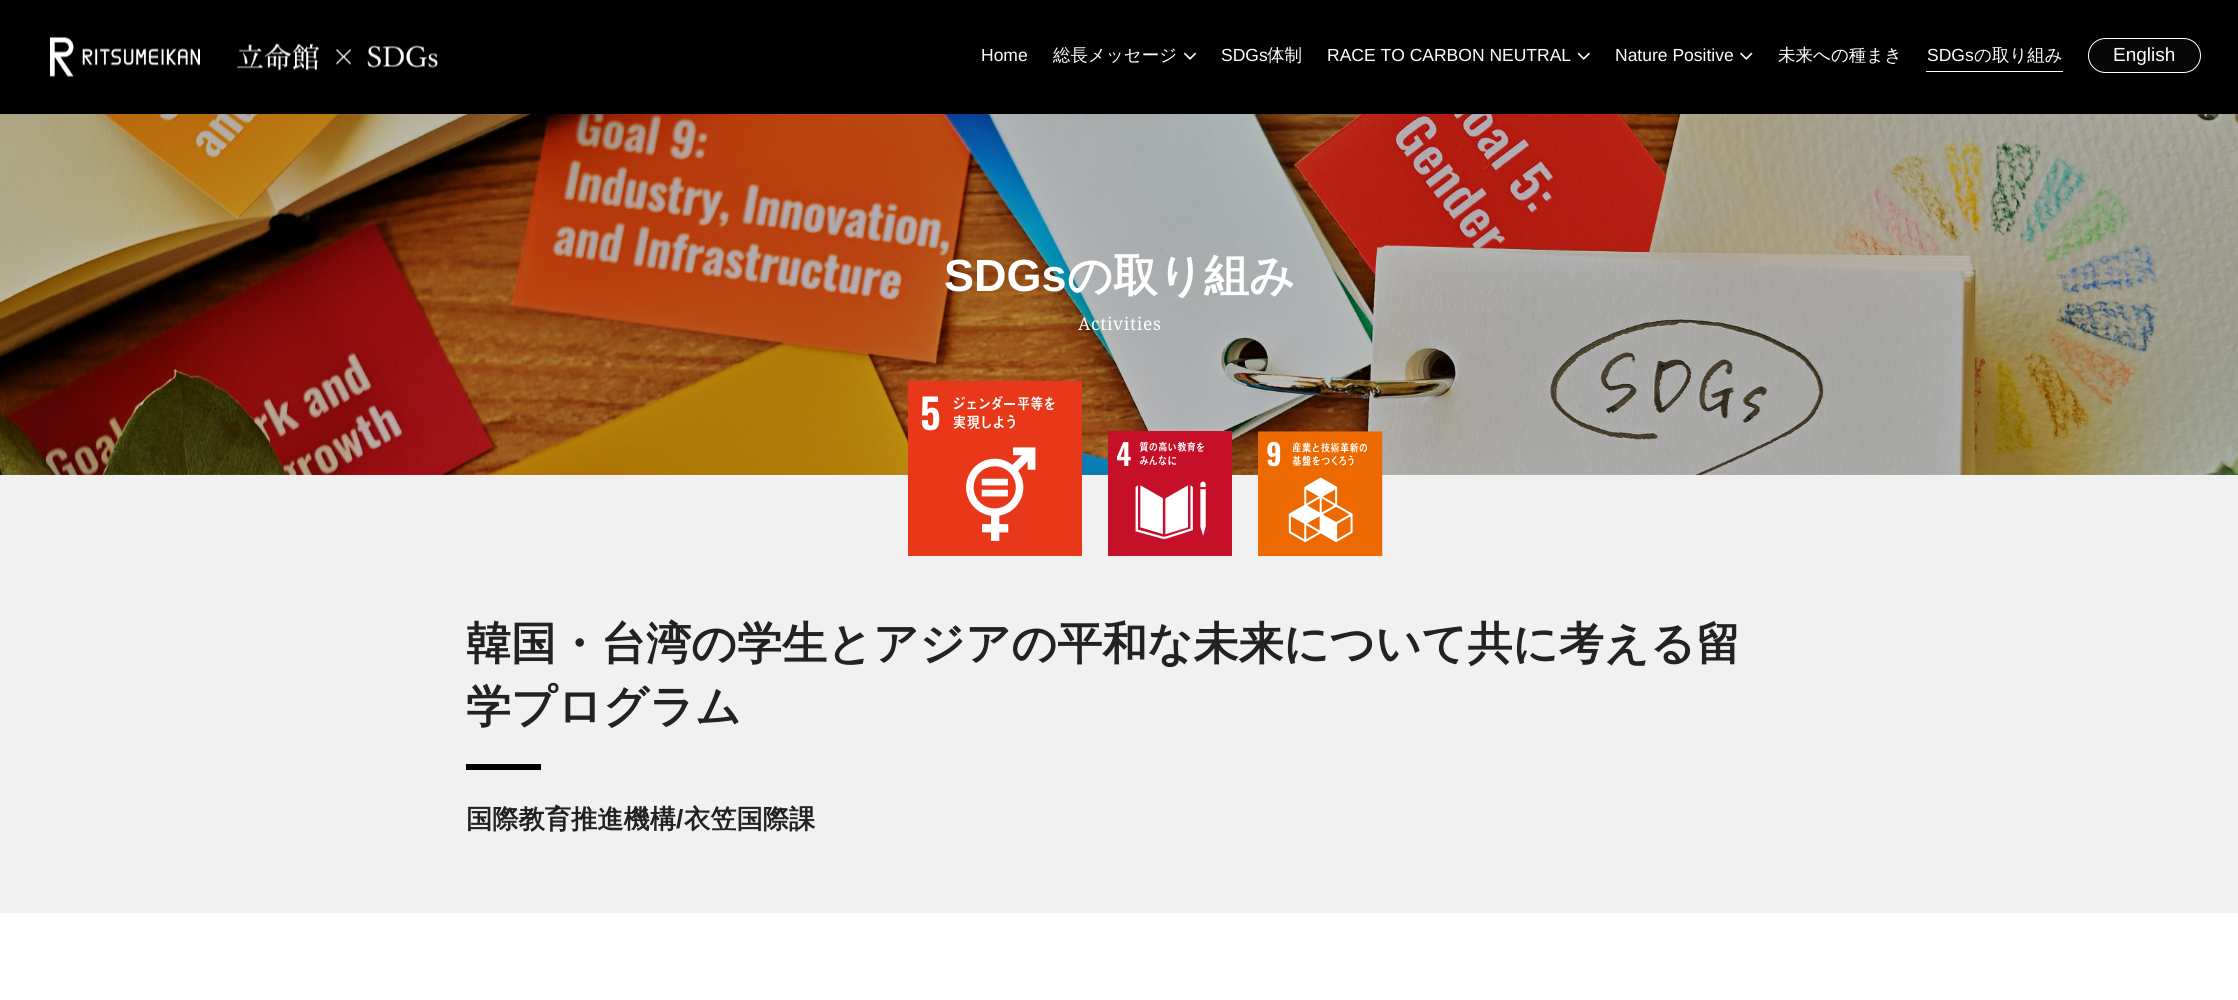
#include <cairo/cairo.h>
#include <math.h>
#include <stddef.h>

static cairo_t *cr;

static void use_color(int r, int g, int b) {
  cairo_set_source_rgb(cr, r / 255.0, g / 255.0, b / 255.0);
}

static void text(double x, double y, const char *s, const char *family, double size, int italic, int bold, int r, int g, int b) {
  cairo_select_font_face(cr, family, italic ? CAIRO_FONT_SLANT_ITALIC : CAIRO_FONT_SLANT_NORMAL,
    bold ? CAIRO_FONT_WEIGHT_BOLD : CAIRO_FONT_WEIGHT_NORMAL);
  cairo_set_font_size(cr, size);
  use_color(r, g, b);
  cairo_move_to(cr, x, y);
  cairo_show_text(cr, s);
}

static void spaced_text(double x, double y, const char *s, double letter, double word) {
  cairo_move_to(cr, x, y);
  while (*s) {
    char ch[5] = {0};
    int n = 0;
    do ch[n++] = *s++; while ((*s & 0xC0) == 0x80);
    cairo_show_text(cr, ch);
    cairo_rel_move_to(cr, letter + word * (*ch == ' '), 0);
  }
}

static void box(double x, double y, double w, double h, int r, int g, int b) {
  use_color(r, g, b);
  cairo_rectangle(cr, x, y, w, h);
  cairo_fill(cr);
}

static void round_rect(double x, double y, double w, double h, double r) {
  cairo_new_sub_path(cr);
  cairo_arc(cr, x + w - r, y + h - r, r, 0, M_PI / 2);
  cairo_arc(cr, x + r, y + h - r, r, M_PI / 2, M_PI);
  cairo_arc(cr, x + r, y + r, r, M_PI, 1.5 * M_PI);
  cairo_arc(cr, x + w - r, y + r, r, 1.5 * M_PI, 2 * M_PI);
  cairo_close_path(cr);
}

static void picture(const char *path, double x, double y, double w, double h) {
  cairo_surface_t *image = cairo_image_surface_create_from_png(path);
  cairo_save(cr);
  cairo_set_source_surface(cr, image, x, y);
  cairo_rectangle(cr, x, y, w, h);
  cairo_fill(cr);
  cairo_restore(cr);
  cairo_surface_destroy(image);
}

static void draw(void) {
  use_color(255, 255, 255);
  cairo_paint(cr);
  box(0, 0, 2238, 114, 0, 0, 0);
  picture("img_01.png", 50, 37, 150, 40);
  picture("img_02.png", 237, 43, 201, 28);
  picture("img_03.png", 1183, 52, 14, 8);
  picture("img_04.png", 1577, 52, 13, 8);
  picture("img_05.png", 1740, 52, 13, 8);
  box(1926, 71, 137, 1, 255, 255, 255);
  use_color(7, 7, 7);
  round_rect(2088.5, 38.5, 112, 34, 17);
  cairo_fill_preserve(cr);
  use_color(255, 255, 255);
  cairo_set_line_width(cr, 1);
  cairo_stroke(cr);
  picture("img_06.png", 0, 114, 2238, 361);
  box(0, 475, 2238, 438, 241, 241, 241);
  picture("img_07.png", 908, 381, 174, 175);
  picture("img_08.png", 1108, 431, 124, 125);
  picture("img_09.png", 1258, 431, 125, 125);
  box(466, 764, 75, 6, 0, 0, 0);
  text(981, 61, "Home", "Liberation Sans", 17.5, 0, 0, 255, 255, 255);
  text(1053, 61, "総長メッセージ", "WenQuanYi Zen Hei Medium", 17.5, 0, 0, 255, 255, 255);
  text(1221, 61, "SDGs", "Liberation Sans", 17.5, 0, 0, 255, 255, 255);
  text(1267, 61, "体制", "WenQuanYi Zen Hei Medium", 17.5, 0, 0, 255, 255, 255);
  text(1327, 61, "RACE TO CARBON NEUTRAL", "Liberation Sans", 17.5, 0, 0, 255, 255, 255);
  text(1615, 61, "Nature Positive", "Liberation Sans", 17.5, 0, 0, 255, 255, 255);
  text(1778, 61, "未来への種まき", "WenQuanYi Zen Hei Medium", 17.5, 0, 0, 255, 255, 255);
  text(1927, 61, "SDGs", "Liberation Sans", 17.5, 0, 0, 255, 255, 255);
  text(1974, 61, "の取り組み", "WenQuanYi Zen Hei Medium", 17.5, 0, 0, 255, 255, 255);
  text(2113, 61, "English", "Liberation Sans", 19, 0, 0, 255, 255, 255);
  text(944, 291, "SDGs", "Liberation Sans", 45, 0, 1, 255, 255, 255);
  text(1067, 291, "の取り組み", "WenQuanYi Zen Hei", 45, 0, 1, 255, 255, 255);
  cairo_select_font_face(cr, "Noto Serif", CAIRO_FONT_SLANT_NORMAL, CAIRO_FONT_WEIGHT_NORMAL);
  cairo_set_font_size(cr, 17.5);
  spaced_text(1078, 330, "Activities", 0.6, 0);
  text(466, 659, "韓国・台湾の学生とアジアの平和な未来について共に考える留", "WenQuanYi Zen Hei", 45, 0, 1, 34, 34, 34);
  text(466, 722, "学プログラム", "WenQuanYi Zen Hei", 45, 0, 1, 34, 34, 34);
  text(466, 828, "国際教育推進機構", "WenQuanYi Zen Hei", 26.25, 0, 1, 34, 34, 34);
  text(676, 828, "/", "Liberation Sans", 26.25, 0, 1, 34, 34, 34);
  text(684, 828, "衣笠国際課", "WenQuanYi Zen Hei", 26.25, 0, 1, 34, 34, 34);
}

int main(void) {
  cairo_surface_t *surface = cairo_image_surface_create(CAIRO_FORMAT_RGB24, 2238, 1000);
  cr = cairo_create(surface);
  cairo_font_options_t *options = cairo_font_options_create();
  cairo_font_options_set_hint_metrics(options, CAIRO_HINT_METRICS_OFF);
  cairo_font_options_set_hint_style(options, CAIRO_HINT_STYLE_NONE);
  cairo_set_font_options(cr, options);
  cairo_set_miter_limit(cr, 4);
  draw();
  cairo_surface_write_to_png(surface, "out.png");
  cairo_font_options_destroy(options);
  cairo_destroy(cr);
  cairo_surface_destroy(surface);
  return 0;
}
